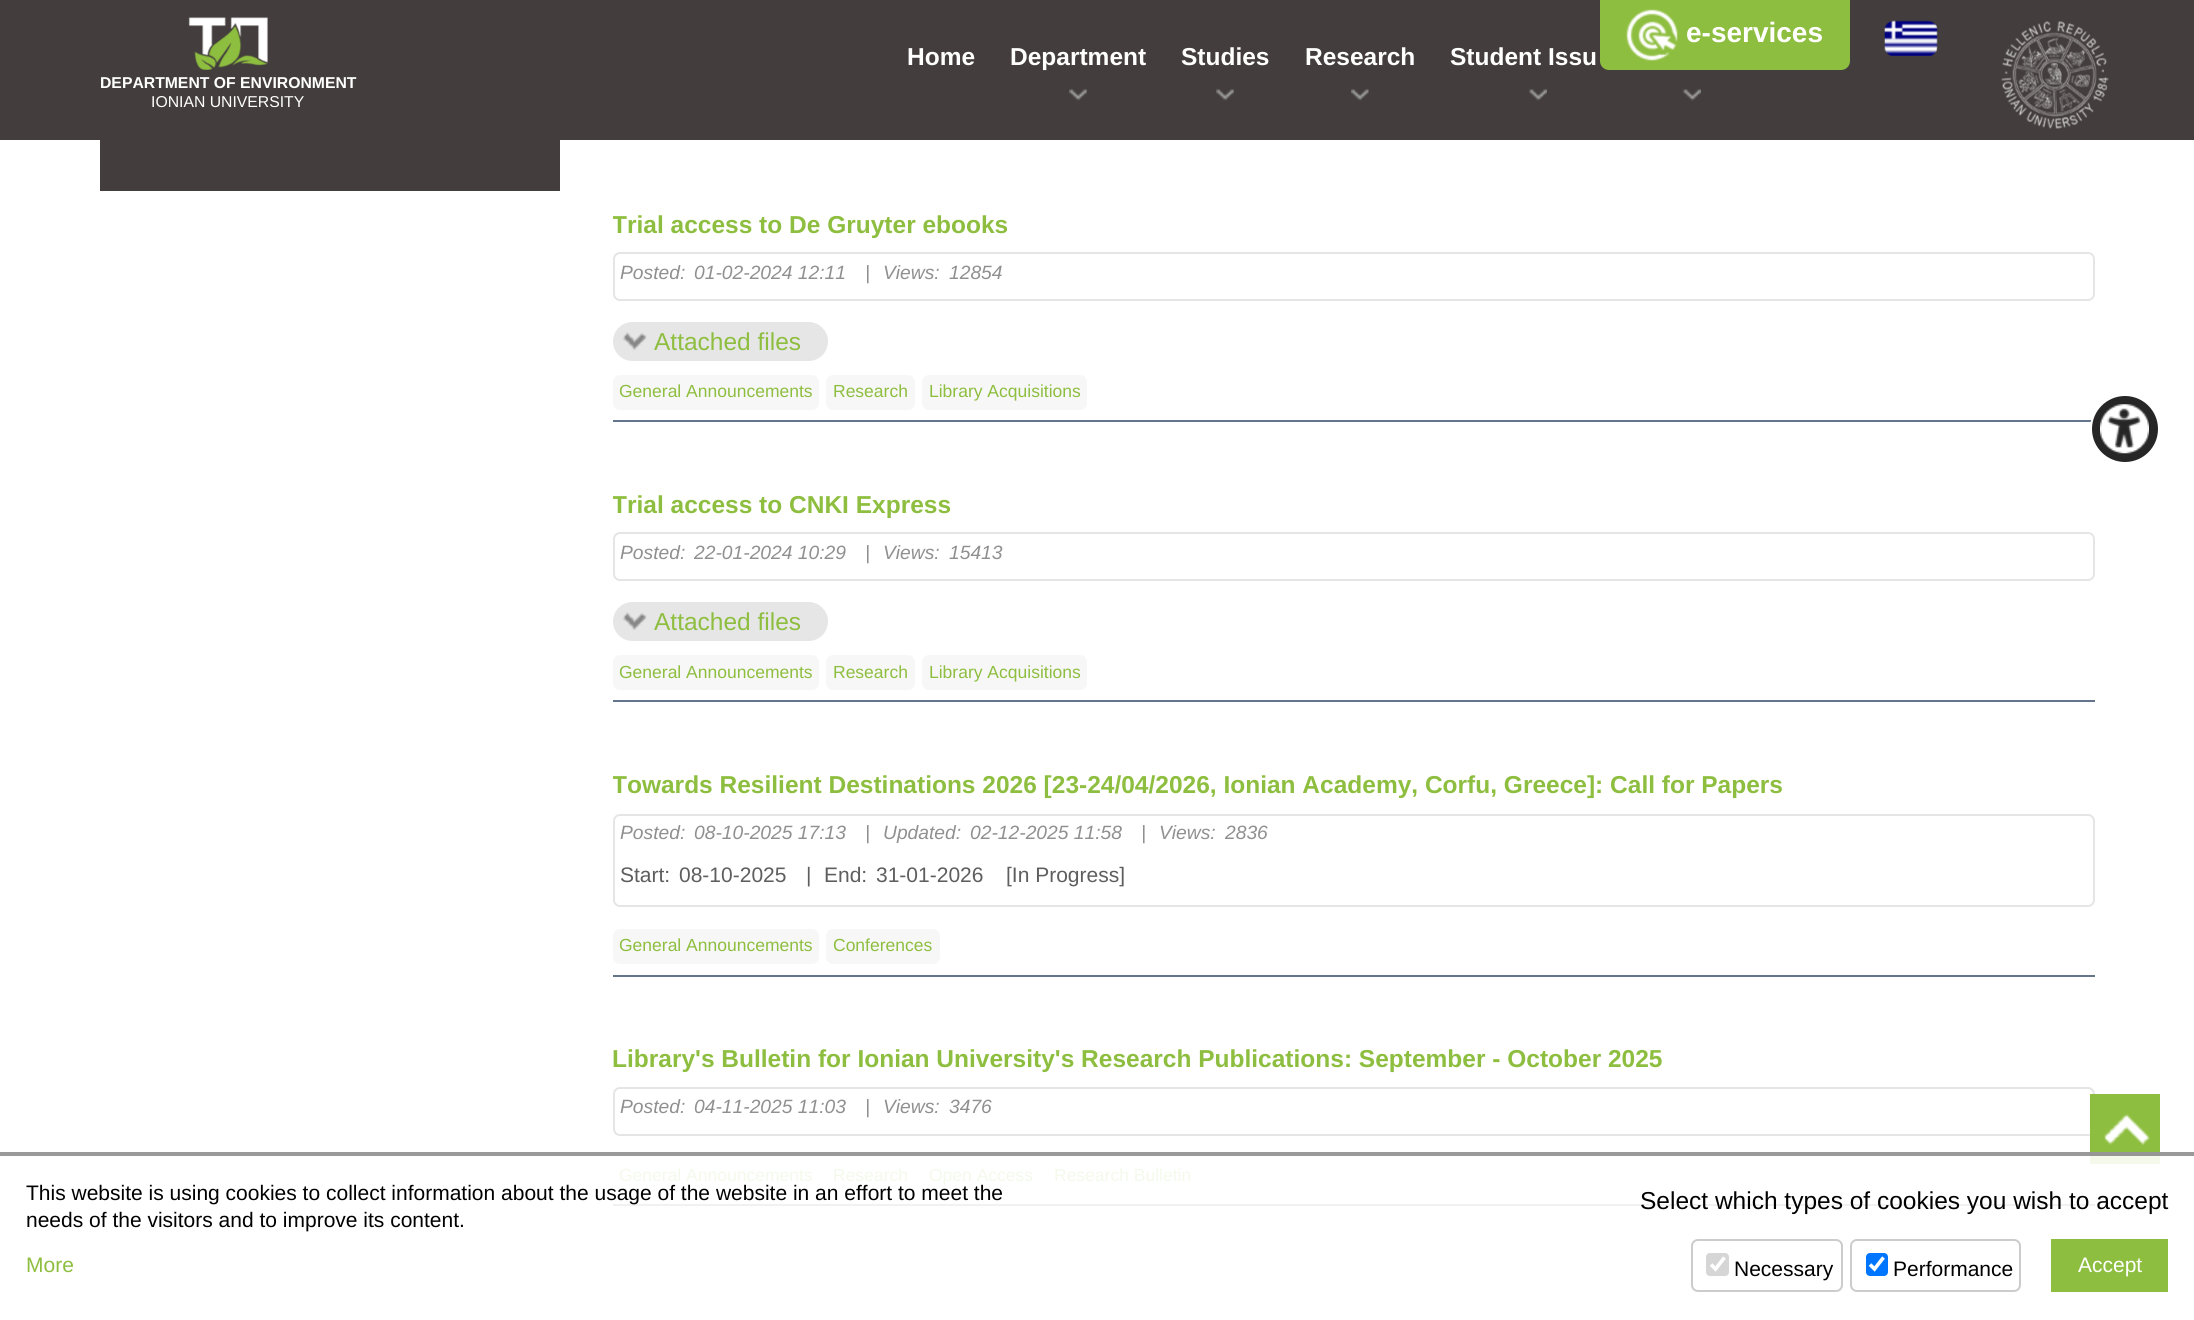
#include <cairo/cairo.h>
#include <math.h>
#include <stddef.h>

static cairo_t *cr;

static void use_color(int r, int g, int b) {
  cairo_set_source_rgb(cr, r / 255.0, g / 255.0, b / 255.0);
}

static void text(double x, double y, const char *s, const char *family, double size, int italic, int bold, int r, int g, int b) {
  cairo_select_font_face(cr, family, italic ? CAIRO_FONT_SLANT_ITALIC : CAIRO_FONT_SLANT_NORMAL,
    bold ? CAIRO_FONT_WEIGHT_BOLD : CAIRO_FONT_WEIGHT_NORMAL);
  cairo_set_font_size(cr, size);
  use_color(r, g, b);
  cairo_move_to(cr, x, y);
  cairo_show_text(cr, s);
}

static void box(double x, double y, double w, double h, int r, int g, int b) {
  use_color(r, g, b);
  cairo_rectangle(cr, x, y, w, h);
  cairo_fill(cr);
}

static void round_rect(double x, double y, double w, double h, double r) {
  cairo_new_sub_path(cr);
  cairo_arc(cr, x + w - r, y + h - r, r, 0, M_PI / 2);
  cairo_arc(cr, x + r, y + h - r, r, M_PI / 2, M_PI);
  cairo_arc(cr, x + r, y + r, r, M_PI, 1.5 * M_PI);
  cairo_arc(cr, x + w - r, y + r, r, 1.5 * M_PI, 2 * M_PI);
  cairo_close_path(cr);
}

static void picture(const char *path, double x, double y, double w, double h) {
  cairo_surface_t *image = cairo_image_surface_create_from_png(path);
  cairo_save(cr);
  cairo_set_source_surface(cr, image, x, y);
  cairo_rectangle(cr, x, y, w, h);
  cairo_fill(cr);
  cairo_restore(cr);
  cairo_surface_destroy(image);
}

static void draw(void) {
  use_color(255, 255, 255);
  cairo_paint(cr);
  box(0, 1152, 2194, 4, 153, 153, 153);
  box(0, 0, 2194, 140, 67, 62, 61);
  picture("img_01.png", 1069, 89, 18, 12);
  picture("img_01.png", 1216, 89, 18, 12);
  picture("img_02.png", 1351, 89, 18, 12);
  picture("img_03.png", 1529, 89, 18, 12);
  picture("img_03.png", 1683, 89, 18, 12);
  use_color(142, 190, 63);
  cairo_new_path(cr);
  cairo_move_to(cr, 1600, 0);
  cairo_line_to(cr, 1850, 0);
  cairo_line_to(cr, 1850, 61);
  cairo_curve_to(cr, 1850, 66, 1846, 70, 1841, 70);
  cairo_line_to(cr, 1609, 70);
  cairo_curve_to(cr, 1604, 70, 1600, 66, 1600, 61);
  cairo_close_path(cr);
  cairo_fill(cr);
  picture("img_04.png", 1626, 9, 52, 52);
  picture("img_05.png", 1884, 20, 54, 36);
  picture("img_06.png", 2001, 21, 108, 108);
  picture("img_07.png", 188, 17, 80, 53);
  box(100, 140, 460, 51, 67, 62, 61);
  box(613, 420, 1482, 2, 100, 116, 139);
  round_rect(614, 253, 1480, 47, 6);
  use_color(229, 229, 229);
  cairo_stroke(cr);
  use_color(230, 230, 230);
  round_rect(613, 322, 215, 39, 19.5);
  cairo_fill(cr);
  picture("img_08.png", 622, 332, 25, 18);
  use_color(247, 247, 247);
  round_rect(613, 375, 206, 35, 7);
  cairo_fill(cr);
  round_rect(826, 375, 89, 35, 7);
  cairo_fill(cr);
  round_rect(922, 375, 165, 35, 7);
  cairo_fill(cr);
  box(613, 700, 1482, 2, 100, 116, 139);
  round_rect(614, 533, 1480, 47, 6);
  use_color(229, 229, 229);
  cairo_stroke(cr);
  use_color(230, 230, 230);
  round_rect(613, 602, 215, 39, 19.5);
  cairo_fill(cr);
  picture("img_09.png", 622, 612, 25, 18);
  use_color(247, 247, 247);
  round_rect(613, 655, 206, 35, 7);
  cairo_fill(cr);
  round_rect(826, 655, 89, 35, 7);
  cairo_fill(cr);
  round_rect(922, 655, 165, 35, 7);
  cairo_fill(cr);
  box(613, 975, 1482, 2, 100, 116, 139);
  round_rect(614, 815, 1480, 91, 6);
  use_color(229, 229, 229);
  cairo_stroke(cr);
  use_color(247, 247, 247);
  round_rect(613, 929, 206, 35, 7);
  cairo_fill(cr);
  round_rect(826, 929, 114, 35, 7);
  cairo_fill(cr);
  box(613, 1204, 1482, 2, 240, 241, 243);
  round_rect(614, 1088, 1480, 47, 6);
  use_color(229, 229, 229);
  cairo_stroke(cr);
  box(2090, 1094, 70, 58, 142, 190, 63);
  box(2090, 1156, 70, 8, 244, 249, 236);
  box(2090, 1152, 70, 4, 150, 151, 149);
  picture("img_10.png", 2103, 1114, 47, 31);
  use_color(38, 38, 38);
  cairo_arc(cr, 2125, 429, 34, 0, 2 * M_PI);
  cairo_fill_preserve(cr);
  use_color(255, 255, 255);
  cairo_stroke(cr);
  picture("img_11.png", 2100, 404, 49, 50);
  round_rect(1692, 1240, 150, 51, 6);
  use_color(204, 204, 204);
  cairo_stroke(cr);
  use_color(214, 214, 214);
  round_rect(1706, 1253, 23, 23, 4);
  cairo_fill(cr);
  cairo_new_path(cr);
  cairo_move_to(cr, 1711, 1264.5);
  cairo_line_to(cr, 1715.5, 1269);
  cairo_line_to(cr, 1724.5, 1257.5);
  use_color(255, 255, 255);
  cairo_set_line_width(cr, 3.6);
  cairo_stroke(cr);
  round_rect(1851, 1240, 169, 51, 6);
  use_color(204, 204, 204);
  cairo_set_line_width(cr, 2);
  cairo_stroke(cr);
  use_color(0, 117, 255);
  round_rect(1866, 1253, 22, 23, 4);
  cairo_fill(cr);
  cairo_new_path(cr);
  cairo_move_to(cr, 1870, 1264.5);
  cairo_line_to(cr, 1874.5, 1269);
  cairo_line_to(cr, 1883.5, 1257.5);
  use_color(255, 255, 255);
  cairo_set_line_width(cr, 3.6);
  cairo_stroke(cr);
  box(2051, 1239, 117, 53, 142, 190, 63);
  text(907, 65, "Home", "Liberation Sans", 24.5, 0, 1, 255, 255, 255);
  text(1010, 65, "Department", "Liberation Sans", 24.5, 0, 1, 255, 255, 255);
  text(1181, 65, "Studies", "Liberation Sans", 24.5, 0, 1, 255, 255, 255);
  text(1305, 65, "Research", "Liberation Sans", 24.5, 0, 1, 255, 255, 255);
  text(1450, 65, "Student Issu", "Liberation Sans", 24.5, 0, 1, 255, 255, 255);
  text(1686, 42, "e-services", "Liberation Sans", 28, 0, 1, 255, 255, 255);
  text(100, 88, "DEPARTMENT OF ENVIRONMENT", "Liberation Sans", 15.75, 0, 1, 255, 255, 255);
  text(151, 107, "IONIAN UNIVERSITY", "Liberation Sans", 15.75, 0, 0, 255, 255, 255);
  cairo_save(cr);
  cairo_rectangle(cr, 613, 194, 1482, 226);
  cairo_clip(cr);
  text(612, 233, "Trial access to De Gruyter ebooks", "Liberation Sans", 24.5, 0, 1, 142, 190, 63);
  cairo_restore(cr);
  text(620, 279, "Posted:", "Liberation Sans", 19.25, 1, 0, 144, 144, 144);
  text(694, 279, "01-02-2024 12:11", "Liberation Sans", 19.25, 1, 0, 144, 144, 144);
  text(865, 279, "|", "Liberation Sans", 19.25, 1, 0, 144, 144, 144);
  text(883, 279, "Views:", "Liberation Sans", 19.25, 1, 0, 144, 144, 144);
  text(949, 279, "12854", "Liberation Sans", 19.25, 1, 0, 144, 144, 144);
  text(654, 350, "Attached files", "Liberation Sans", 24.5, 0, 0, 142, 190, 63);
  text(619, 397, "General Announcements", "Liberation Sans", 17.5, 0, 0, 142, 190, 63);
  text(833, 397, "Research", "Liberation Sans", 17.5, 0, 0, 142, 190, 63);
  text(929, 397, "Library Acquisitions", "Liberation Sans", 17.5, 0, 0, 142, 190, 63);
  cairo_save(cr);
  cairo_rectangle(cr, 613, 474, 1482, 226);
  cairo_clip(cr);
  text(612, 513, "Trial access to CNKI Express", "Liberation Sans", 24.5, 0, 1, 142, 190, 63);
  cairo_restore(cr);
  text(620, 559, "Posted:", "Liberation Sans", 19.25, 1, 0, 144, 144, 144);
  text(694, 559, "22-01-2024 10:29", "Liberation Sans", 19.25, 1, 0, 144, 144, 144);
  text(865, 559, "|", "Liberation Sans", 19.25, 1, 0, 144, 144, 144);
  text(883, 559, "Views:", "Liberation Sans", 19.25, 1, 0, 144, 144, 144);
  text(949, 559, "15413", "Liberation Sans", 19.25, 1, 0, 144, 144, 144);
  text(654, 630, "Attached files", "Liberation Sans", 24.5, 0, 0, 142, 190, 63);
  text(619, 678, "General Announcements", "Liberation Sans", 17.5, 0, 0, 142, 190, 63);
  text(833, 678, "Research", "Liberation Sans", 17.5, 0, 0, 142, 190, 63);
  text(929, 678, "Library Acquisitions", "Liberation Sans", 17.5, 0, 0, 142, 190, 63);
  cairo_save(cr);
  cairo_rectangle(cr, 613, 754, 1482, 221);
  cairo_clip(cr);
  text(612, 793, "Towards Resilient Destinations 2026 [23-24/04/2026, Ionian Academy, Corfu, Greece]: Call for Papers", "Liberation Sans", 24.5, 0, 1, 142, 190, 63);
  cairo_restore(cr);
  text(620, 839, "Posted:", "Liberation Sans", 19.25, 1, 0, 144, 144, 144);
  text(694, 839, "08-10-2025 17:13", "Liberation Sans", 19.25, 1, 0, 144, 144, 144);
  text(865, 839, "|", "Liberation Sans", 19.25, 1, 0, 144, 144, 144);
  text(883, 839, "Updated:", "Liberation Sans", 19.25, 1, 0, 144, 144, 144);
  text(970, 839, "02-12-2025 11:58", "Liberation Sans", 19.25, 1, 0, 144, 144, 144);
  text(1141, 839, "|", "Liberation Sans", 19.25, 1, 0, 144, 144, 144);
  text(1159, 839, "Views:", "Liberation Sans", 19.25, 1, 0, 144, 144, 144);
  text(1225, 839, "2836", "Liberation Sans", 19.25, 1, 0, 144, 144, 144);
  text(620, 882, "Start:", "Liberation Sans", 21, 0, 0, 94, 94, 94);
  text(679, 882, "08-10-2025", "Liberation Sans", 21, 0, 0, 94, 94, 94);
  text(806, 882, "|", "Liberation Sans", 21, 0, 0, 94, 94, 94);
  text(824, 882, "End:", "Liberation Sans", 21, 0, 0, 94, 94, 94);
  text(876, 882, "31-01-2026", "Liberation Sans", 21, 0, 0, 94, 94, 94);
  text(1006, 882, "[In Progress]", "Liberation Sans", 21, 0, 0, 94, 94, 94);
  text(619, 951, "General Announcements", "Liberation Sans", 17.5, 0, 0, 142, 190, 63);
  text(833, 951, "Conferences", "Liberation Sans", 17.5, 0, 0, 142, 190, 63);
  text(612, 1067, "Library's Bulletin for Ionian University's Research Publications: September - October 2025", "Liberation Sans", 24.5, 0, 1, 142, 190, 63);
  text(620, 1113, "Posted:", "Liberation Sans", 19.25, 1, 0, 144, 144, 144);
  text(694, 1113, "04-11-2025 11:03", "Liberation Sans", 19.25, 1, 0, 144, 144, 144);
  text(865, 1113, "|", "Liberation Sans", 19.25, 1, 0, 144, 144, 144);
  text(883, 1113, "Views:", "Liberation Sans", 19.25, 1, 0, 144, 144, 144);
  text(949, 1113, "3476", "Liberation Sans", 19.25, 1, 0, 144, 144, 144);
  text(619, 1181, "General Announcements", "Liberation Sans", 17.5, 0, 0, 244, 249, 236);
  text(833, 1181, "Research", "Liberation Sans", 17.5, 0, 0, 244, 249, 236);
  text(929, 1181, "Open Access", "Liberation Sans", 17.5, 0, 0, 244, 249, 236);
  text(1054, 1181, "Research Bulletin", "Liberation Sans", 17.5, 0, 0, 244, 249, 236);
  text(26, 1200, "This website is using cookies to collect information about the usage of the website in an effort to meet the", "Liberation Sans", 21, 0, 0, 0, 0, 0);
  text(26, 1227, "needs of the visitors and to improve its content.", "Liberation Sans", 21, 0, 0, 0, 0, 0);
  text(26, 1272, "More", "Liberation Sans", 21, 0, 0, 142, 190, 63);
  text(1640, 1209, "Select which types of cookies you wish to accept", "Liberation Sans", 24.5, 0, 0, 0, 0, 0);
  text(1734, 1276, "Necessary", "Liberation Sans", 21, 0, 0, 0, 0, 0);
  text(1893, 1276, "Performance", "Liberation Sans", 21, 0, 0, 0, 0, 0);
  text(2078, 1272, "Accept", "Liberation Sans", 21, 0, 0, 255, 255, 255);
}

int main(void) {
  cairo_surface_t *surface = cairo_image_surface_create(CAIRO_FORMAT_RGB24, 2194, 1320);
  cr = cairo_create(surface);
  cairo_font_options_t *options = cairo_font_options_create();
  cairo_font_options_set_hint_metrics(options, CAIRO_HINT_METRICS_OFF);
  cairo_font_options_set_hint_style(options, CAIRO_HINT_STYLE_NONE);
  cairo_set_font_options(cr, options);
  cairo_set_miter_limit(cr, 4);
  draw();
  cairo_surface_write_to_png(surface, "out.png");
  cairo_font_options_destroy(options);
  cairo_destroy(cr);
  cairo_surface_destroy(surface);
  return 0;
}
